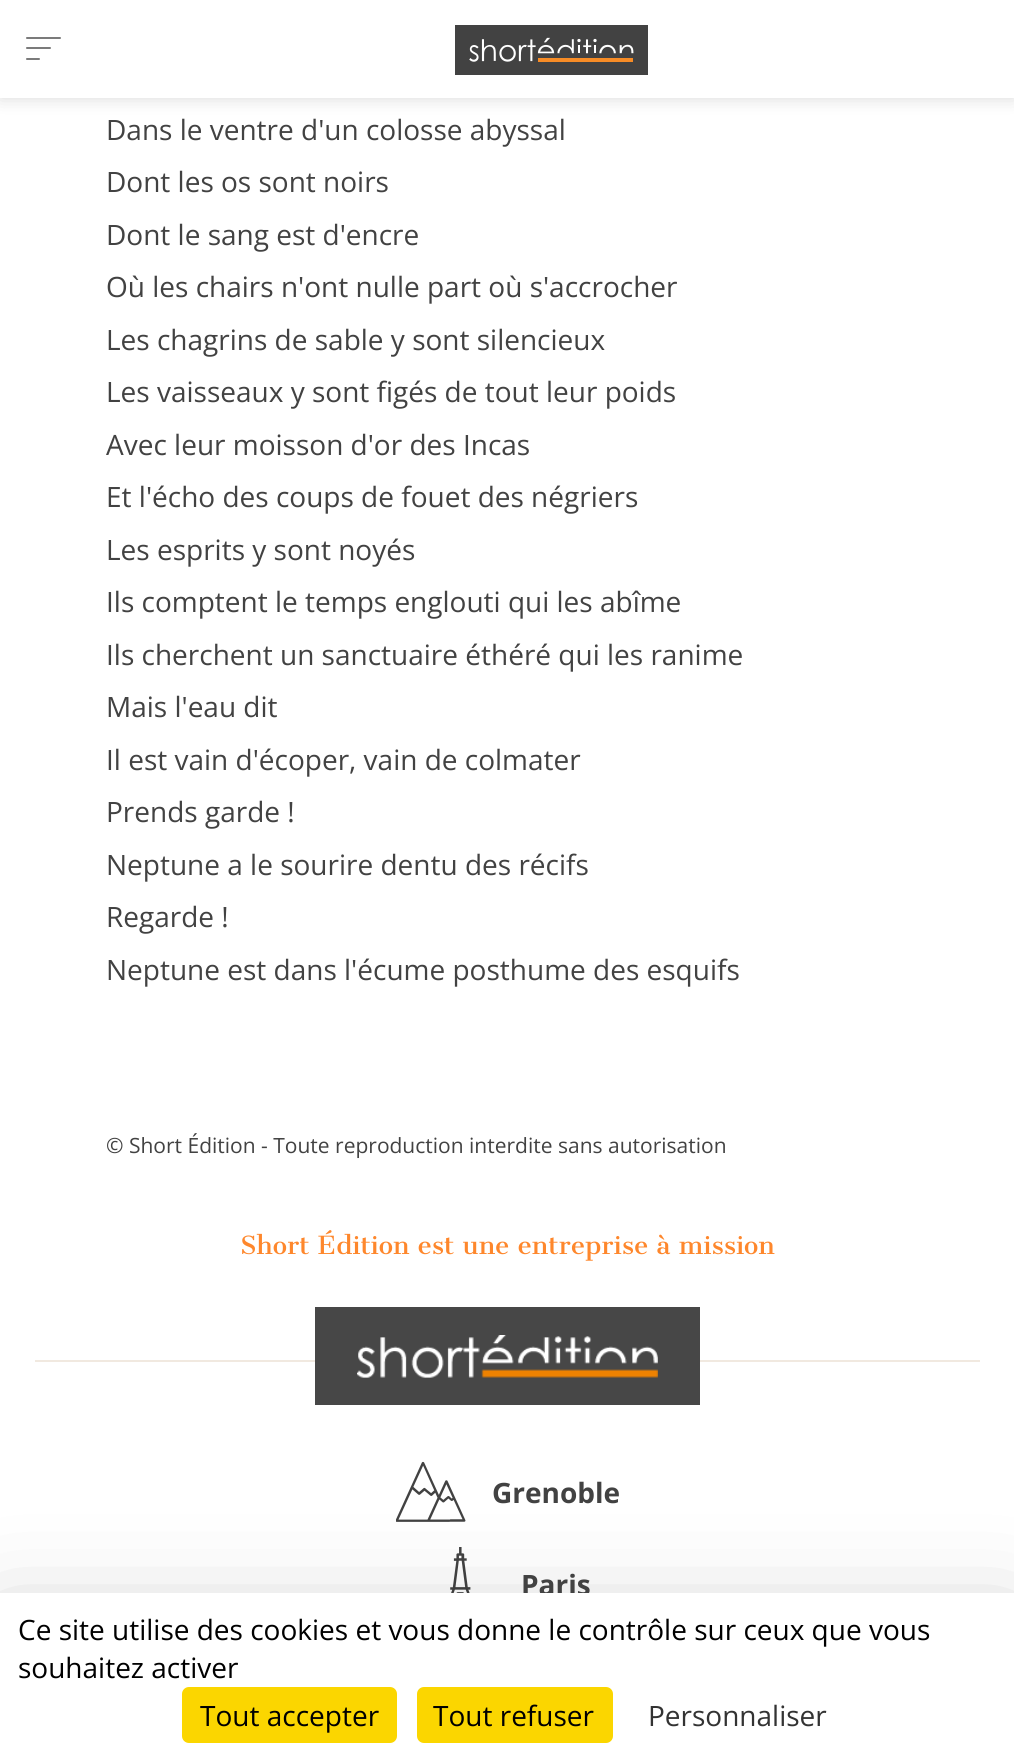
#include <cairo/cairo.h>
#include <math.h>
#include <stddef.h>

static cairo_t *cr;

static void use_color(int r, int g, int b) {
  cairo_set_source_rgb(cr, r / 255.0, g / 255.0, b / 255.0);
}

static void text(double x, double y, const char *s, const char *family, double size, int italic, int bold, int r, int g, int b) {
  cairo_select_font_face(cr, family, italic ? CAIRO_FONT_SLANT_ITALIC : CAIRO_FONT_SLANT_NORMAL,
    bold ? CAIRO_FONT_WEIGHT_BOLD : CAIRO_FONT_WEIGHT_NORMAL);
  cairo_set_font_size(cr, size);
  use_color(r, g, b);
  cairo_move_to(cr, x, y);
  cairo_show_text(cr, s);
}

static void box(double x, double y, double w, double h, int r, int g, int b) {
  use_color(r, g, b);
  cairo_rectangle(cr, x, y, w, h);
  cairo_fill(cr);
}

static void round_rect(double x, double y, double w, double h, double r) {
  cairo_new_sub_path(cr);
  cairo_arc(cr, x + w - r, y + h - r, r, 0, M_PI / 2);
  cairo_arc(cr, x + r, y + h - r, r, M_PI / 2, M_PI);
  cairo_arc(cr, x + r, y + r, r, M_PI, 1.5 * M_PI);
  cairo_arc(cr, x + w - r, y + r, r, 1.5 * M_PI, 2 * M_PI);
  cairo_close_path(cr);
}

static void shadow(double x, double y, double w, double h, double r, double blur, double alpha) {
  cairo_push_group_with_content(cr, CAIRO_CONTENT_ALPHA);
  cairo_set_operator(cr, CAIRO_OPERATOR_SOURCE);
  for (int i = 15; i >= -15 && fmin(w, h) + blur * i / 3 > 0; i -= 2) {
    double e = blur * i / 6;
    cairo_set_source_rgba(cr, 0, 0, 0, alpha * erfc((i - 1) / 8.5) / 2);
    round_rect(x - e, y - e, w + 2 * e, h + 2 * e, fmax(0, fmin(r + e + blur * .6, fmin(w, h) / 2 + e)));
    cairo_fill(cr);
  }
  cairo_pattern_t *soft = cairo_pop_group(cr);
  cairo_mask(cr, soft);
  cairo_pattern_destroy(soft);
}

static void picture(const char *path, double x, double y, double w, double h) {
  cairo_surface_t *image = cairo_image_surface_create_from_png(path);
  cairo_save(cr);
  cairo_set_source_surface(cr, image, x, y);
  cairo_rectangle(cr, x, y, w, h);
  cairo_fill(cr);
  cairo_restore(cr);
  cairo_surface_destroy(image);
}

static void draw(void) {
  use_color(255, 255, 255);
  cairo_paint(cr);
  use_color(0, 0, 0);
  shadow(0, 0, 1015, 98, 0, 9, 0.15);
  box(0, 0, 1014, 98, 255, 255, 255);
  use_color(123, 123, 123);
  round_rect(26, 37, 35, 2, 1);
  cairo_fill(cr);
  round_rect(26, 47, 25, 2, 1);
  cairo_fill(cr);
  round_rect(26, 58, 14, 2, 1);
  cairo_fill(cr);
  picture("img_01.png", 455, 25, 193, 50);
  box(35, 1360, 945, 2, 241, 233, 224);
  box(315, 1307, 385, 98, 71, 71, 71);
  picture("img_02.png", 357, 1335, 301, 43);
  picture("img_03.png", 396, 1461, 70, 61);
  picture("img_04.png", 450, 1547, 21, 46);
  use_color(0, 0, 0);
  shadow(0, 1628, 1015, 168, 0, 52.5, 0.25);
  text(106, 140, "Dans le ventre d'un colosse abyssal", "Open Sans", 28, 0, 0, 66, 66, 66);
  text(106, 192, "Dont les os sont noirs", "Open Sans", 28, 0, 0, 66, 66, 66);
  text(106, 245, "Dont le sang est d'encre", "Open Sans", 28, 0, 0, 66, 66, 66);
  text(106, 297, "Où les chairs n'ont nulle part où s'accrocher", "Open Sans", 28, 0, 0, 66, 66, 66);
  text(106, 350, "Les chagrins de sable y sont silencieux", "Open Sans", 28, 0, 0, 66, 66, 66);
  text(106, 402, "Les vaisseaux y sont figés de tout leur poids", "Open Sans", 28, 0, 0, 66, 66, 66);
  text(106, 455, "Avec leur moisson d'or des Incas", "Open Sans", 28, 0, 0, 66, 66, 66);
  text(106, 507, "Et l'écho des coups de fouet des négriers", "Open Sans", 28, 0, 0, 66, 66, 66);
  text(106, 560, "Les esprits y sont noyés", "Open Sans", 28, 0, 0, 66, 66, 66);
  text(106, 612, "Ils comptent le temps englouti qui les abîme", "Open Sans", 28, 0, 0, 66, 66, 66);
  text(106, 665, "Ils cherchent un sanctuaire éthéré qui les ranime", "Open Sans", 28, 0, 0, 66, 66, 66);
  text(106, 717, "Mais l'eau dit", "Open Sans", 28, 0, 0, 66, 66, 66);
  text(106, 770, "Il est vain d'écoper, vain de colmater", "Open Sans", 28, 0, 0, 66, 66, 66);
  text(106, 822, "Prends garde !", "Open Sans", 28, 0, 0, 66, 66, 66);
  text(106, 875, "Neptune a le sourire dentu des récifs", "Open Sans", 28, 0, 0, 66, 66, 66);
  text(106, 927, "Regarde !", "Open Sans", 28, 0, 0, 66, 66, 66);
  text(106, 980, "Neptune est dans l'écume posthume des esquifs", "Open Sans", 28, 0, 0, 66, 66, 66);
  text(106, 1153, "© Short Édition - Toute reproduction interdite sans autorisation", "Open Sans", 21, 0, 0, 66, 66, 66);
  text(240, 1254, "Short Édition est une entreprise à mission", "Cantata One", 24.5, 0, 0, 254, 135, 44);
  text(492, 1503, "Grenoble", "Open Sans", 28, 0, 1, 66, 66, 66);
  text(521, 1595, "Paris", "Open Sans", 28, 0, 1, 66, 66, 66);
  box(0, 1593, 1014, 166, 255, 255, 255);
  text(18, 1640, "Ce site utilise des cookies et vous donne le contrôle sur ceux que vous", "Open Sans", 28, 0, 0, 0, 0, 0);
  text(18, 1678, "souhaitez activer", "Open Sans", 28, 0, 0, 0, 0, 0);
  use_color(251, 214, 0);
  round_rect(182, 1687, 215, 56, 7);
  cairo_fill(cr);
  text(200, 1726, "Tout accepter", "Open Sans", 28, 0, 0, 0, 0, 0);
  use_color(251, 214, 0);
  round_rect(417, 1687, 196, 56, 7);
  cairo_fill(cr);
  text(433, 1726, "Tout refuser", "Open Sans", 28, 0, 0, 0, 0, 0);
  text(648, 1726, "Personnaliser", "Open Sans", 28, 0, 0, 51, 51, 51);
}

int main(void) {
  cairo_surface_t *surface = cairo_image_surface_create(CAIRO_FORMAT_RGB24, 1014, 1759);
  cr = cairo_create(surface);
  cairo_font_options_t *options = cairo_font_options_create();
  cairo_font_options_set_hint_metrics(options, CAIRO_HINT_METRICS_OFF);
  cairo_font_options_set_hint_style(options, CAIRO_HINT_STYLE_NONE);
  cairo_set_font_options(cr, options);
  cairo_set_miter_limit(cr, 4);
  draw();
  cairo_surface_write_to_png(surface, "out.png");
  cairo_font_options_destroy(options);
  cairo_destroy(cr);
  cairo_surface_destroy(surface);
  return 0;
}
